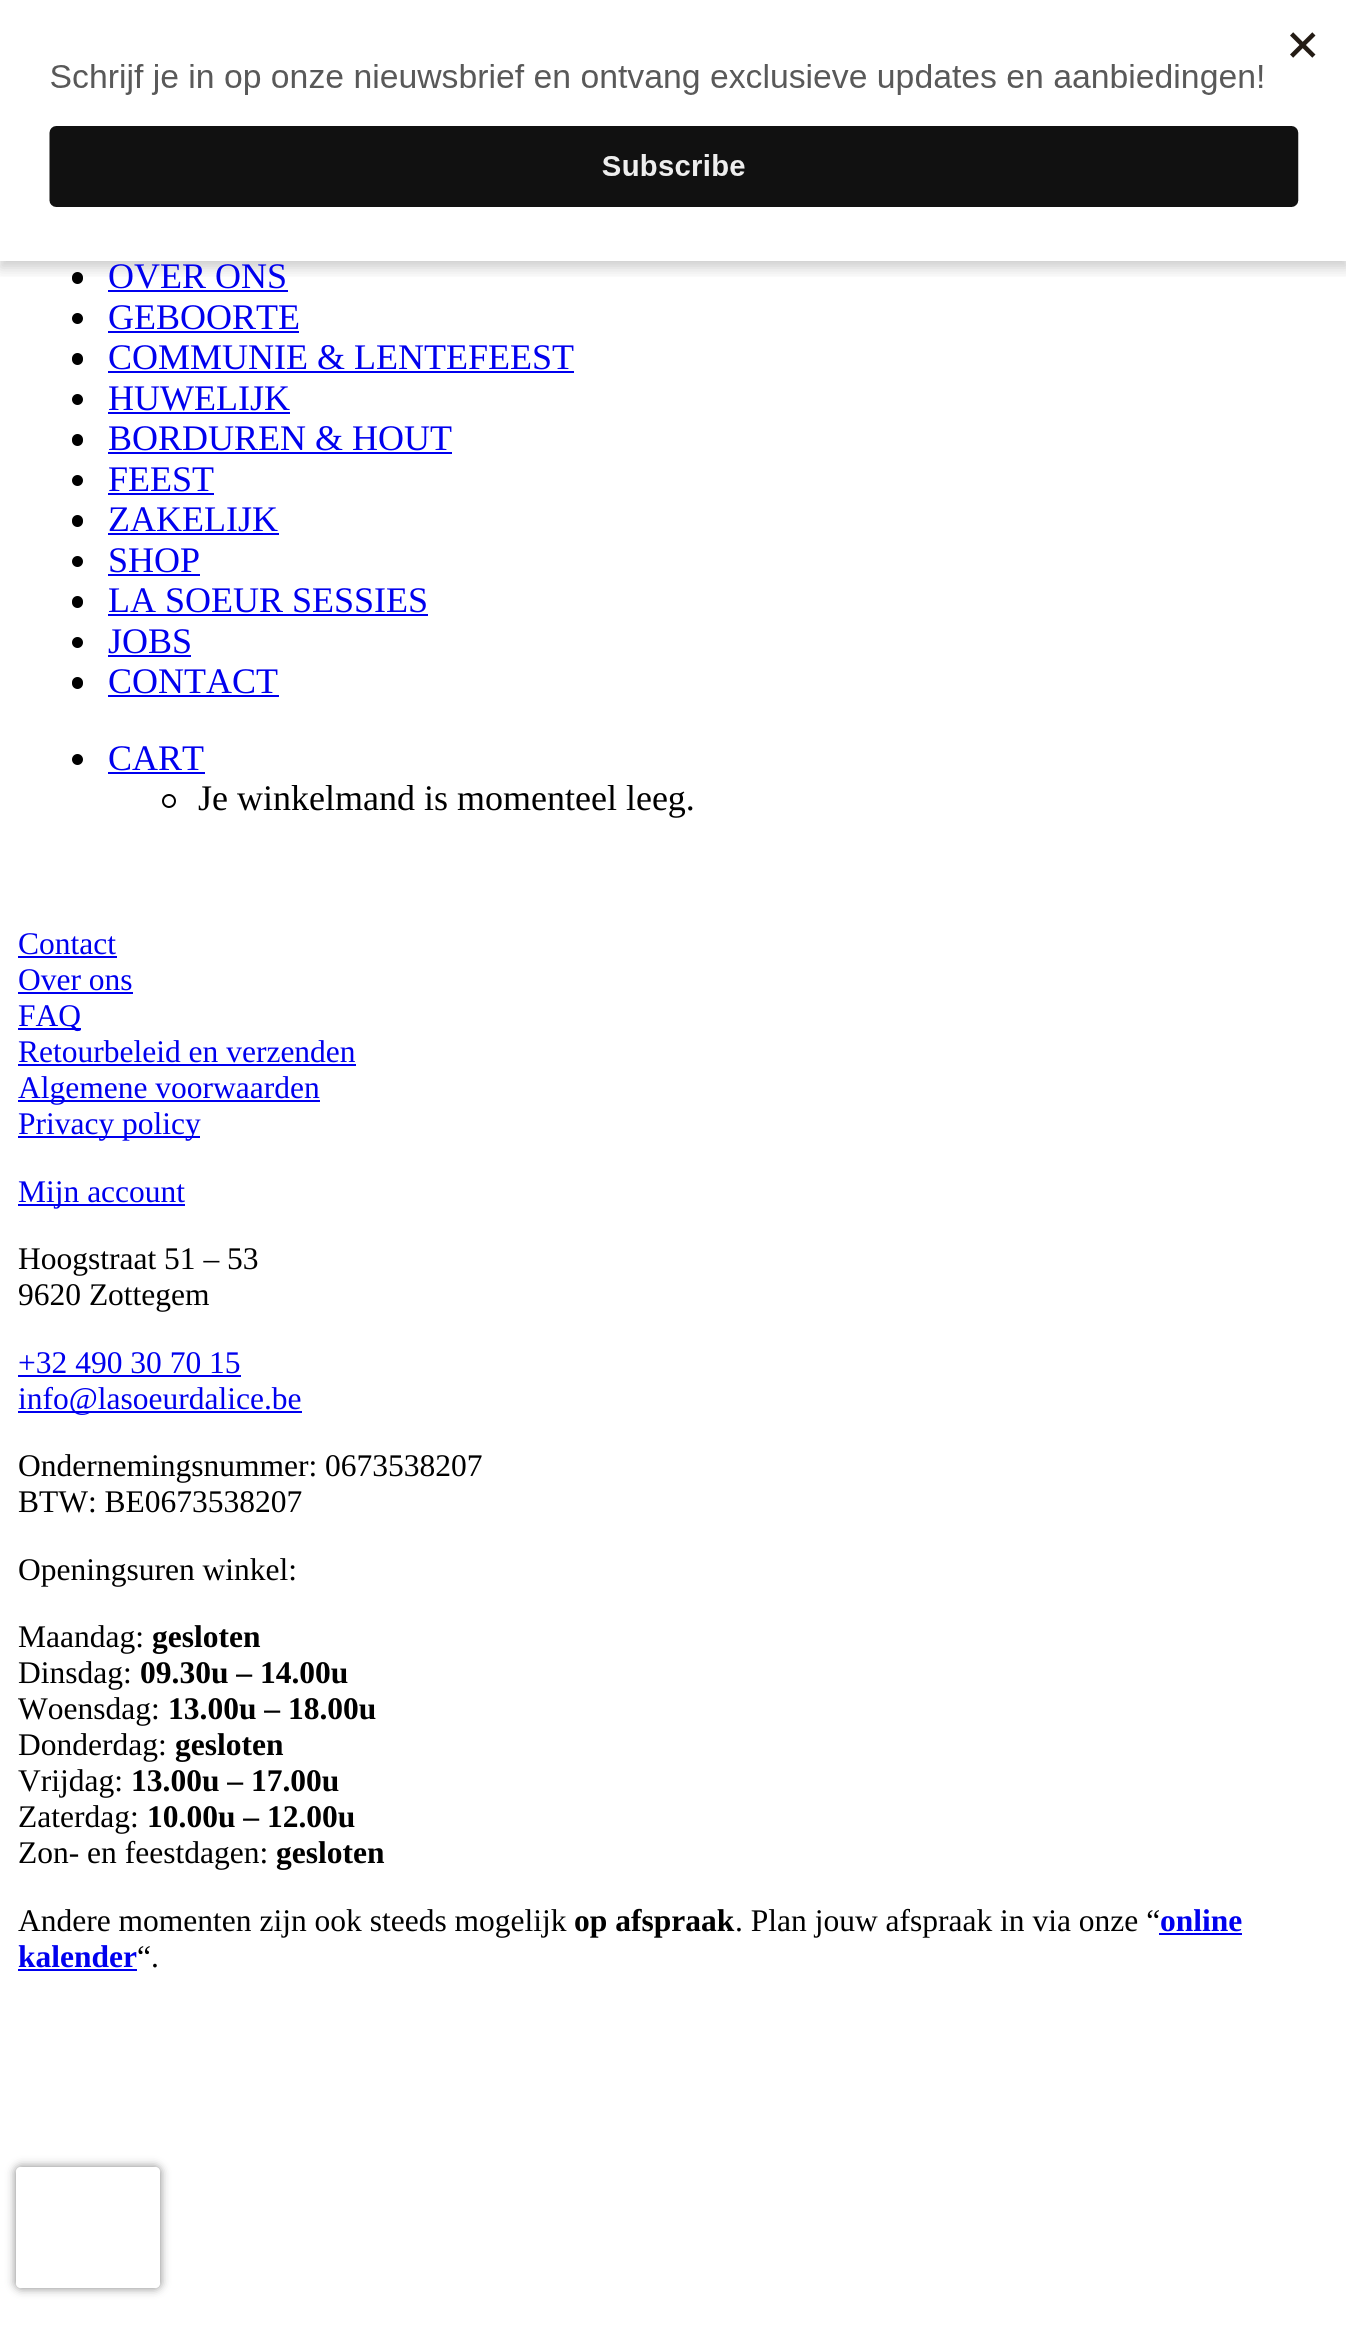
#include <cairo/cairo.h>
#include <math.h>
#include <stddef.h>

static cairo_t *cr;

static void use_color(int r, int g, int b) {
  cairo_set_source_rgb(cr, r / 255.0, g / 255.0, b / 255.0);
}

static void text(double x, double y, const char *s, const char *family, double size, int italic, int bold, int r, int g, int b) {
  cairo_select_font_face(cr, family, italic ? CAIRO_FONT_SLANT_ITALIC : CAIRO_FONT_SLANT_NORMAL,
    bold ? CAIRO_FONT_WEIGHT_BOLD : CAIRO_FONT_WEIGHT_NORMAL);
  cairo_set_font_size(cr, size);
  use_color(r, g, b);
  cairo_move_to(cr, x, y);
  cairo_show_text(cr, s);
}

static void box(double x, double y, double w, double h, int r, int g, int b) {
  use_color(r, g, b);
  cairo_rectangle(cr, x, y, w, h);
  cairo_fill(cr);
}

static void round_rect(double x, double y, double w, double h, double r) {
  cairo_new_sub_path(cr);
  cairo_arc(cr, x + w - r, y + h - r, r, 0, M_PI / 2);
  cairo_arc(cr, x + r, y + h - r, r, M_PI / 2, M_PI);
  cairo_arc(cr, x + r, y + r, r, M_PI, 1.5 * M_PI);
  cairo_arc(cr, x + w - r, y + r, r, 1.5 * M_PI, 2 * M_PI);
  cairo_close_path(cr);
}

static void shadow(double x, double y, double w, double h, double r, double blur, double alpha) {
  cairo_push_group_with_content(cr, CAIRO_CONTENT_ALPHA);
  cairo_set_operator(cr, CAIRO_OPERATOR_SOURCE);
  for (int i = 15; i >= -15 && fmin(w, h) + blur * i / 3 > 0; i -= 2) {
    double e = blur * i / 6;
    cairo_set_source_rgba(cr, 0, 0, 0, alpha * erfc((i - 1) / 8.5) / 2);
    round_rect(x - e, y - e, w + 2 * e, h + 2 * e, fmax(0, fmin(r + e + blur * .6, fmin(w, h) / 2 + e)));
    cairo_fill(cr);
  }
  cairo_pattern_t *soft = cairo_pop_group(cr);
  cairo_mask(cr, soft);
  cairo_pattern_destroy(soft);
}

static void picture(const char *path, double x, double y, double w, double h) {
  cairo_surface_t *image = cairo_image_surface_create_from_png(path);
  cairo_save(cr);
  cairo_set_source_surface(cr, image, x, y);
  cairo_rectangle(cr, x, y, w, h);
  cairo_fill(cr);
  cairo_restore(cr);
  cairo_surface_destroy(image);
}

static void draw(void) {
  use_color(255, 255, 255);
  cairo_paint(cr);
  use_color(0, 0, 0);
  round_rect(72, 272, 11, 12, 5.5);
  cairo_fill(cr);
  cairo_save(cr);
  cairo_rectangle(cr, 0, 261, 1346, 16);
  cairo_clip(cr);
  use_color(0, 0, 0);
  shadow(0, 7, 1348, 261, 0, 7, 0.2);
  cairo_restore(cr);
  picture("img_01.png", 49, 32, 1267, 175);
  box(108, 290, 180, 2, 0, 0, 238);
  use_color(0, 0, 0);
  cairo_arc(cr, 77.5, 318.5, 5.5, 0, 2 * M_PI);
  cairo_fill(cr);
  box(108, 331, 191, 2, 0, 0, 238);
  use_color(0, 0, 0);
  round_rect(72, 353, 11, 12, 5.5);
  cairo_fill(cr);
  box(108, 371, 466, 2, 0, 0, 238);
  use_color(0, 0, 0);
  cairo_arc(cr, 77.5, 399.5, 5.5, 0, 2 * M_PI);
  cairo_fill(cr);
  box(108, 412, 182, 2, 0, 0, 238);
  use_color(0, 0, 0);
  round_rect(72, 434, 11, 12, 5.5);
  cairo_fill(cr);
  box(108, 452, 344, 2, 0, 0, 238);
  use_color(0, 0, 0);
  cairo_arc(cr, 77.5, 480.5, 5.5, 0, 2 * M_PI);
  cairo_fill(cr);
  box(108, 493, 106, 2, 0, 0, 238);
  use_color(0, 0, 0);
  round_rect(72, 515, 11, 12, 5.5);
  cairo_fill(cr);
  box(108, 533, 171, 2, 0, 0, 238);
  use_color(0, 0, 0);
  cairo_arc(cr, 77.5, 561.5, 5.5, 0, 2 * M_PI);
  cairo_fill(cr);
  box(108, 574, 92, 2, 0, 0, 238);
  use_color(0, 0, 0);
  round_rect(72, 596, 11, 12, 5.5);
  cairo_fill(cr);
  box(108, 614, 320, 2, 0, 0, 238);
  use_color(0, 0, 0);
  cairo_arc(cr, 77.5, 642.5, 5.5, 0, 2 * M_PI);
  cairo_fill(cr);
  box(108, 655, 83, 2, 0, 0, 238);
  use_color(0, 0, 0);
  round_rect(72, 677, 11, 12, 5.5);
  cairo_fill(cr);
  box(108, 695, 171, 2, 0, 0, 238);
  use_color(0, 0, 0);
  cairo_arc(cr, 77.5, 759.5, 5.5, 0, 2 * M_PI);
  cairo_fill(cr);
  box(108, 772, 97, 2, 0, 0, 238);
  cairo_arc(cr, 169, 801, 6, 0, 2 * M_PI);
  use_color(0, 0, 0);
  cairo_stroke(cr);
  box(18, 956, 99, 2, 0, 0, 238);
  box(18, 992, 115, 2, 0, 0, 238);
  box(18, 1028, 63, 2, 0, 0, 238);
  box(18, 1064, 338, 2, 0, 0, 238);
  box(18, 1100, 302, 2, 0, 0, 238);
  box(18, 1136, 182, 2, 0, 0, 238);
  box(18, 1204, 167, 2, 0, 0, 238);
  box(18, 1375, 223, 2, 0, 0, 238);
  box(18, 1411, 284, 2, 0, 0, 238);
  box(1159, 1933, 83, 2, 0, 0, 238);
  box(18, 1969, 119, 2, 0, 0, 238);
  cairo_save(cr);
  cairo_set_fill_rule(cr, CAIRO_FILL_RULE_EVEN_ODD);
  cairo_new_path(cr);
  cairo_move_to(cr, 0, 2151);
  cairo_line_to(cr, 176, 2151);
  cairo_line_to(cr, 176, 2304);
  cairo_line_to(cr, 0, 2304);
  cairo_close_path(cr);
  cairo_move_to(cr, 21, 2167);
  cairo_line_to(cr, 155, 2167);
  cairo_curve_to(cr, 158, 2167, 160, 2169, 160, 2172);
  cairo_line_to(cr, 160, 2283);
  cairo_curve_to(cr, 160, 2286, 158, 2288, 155, 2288);
  cairo_line_to(cr, 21, 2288);
  cairo_curve_to(cr, 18, 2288, 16, 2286, 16, 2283);
  cairo_line_to(cr, 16, 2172);
  cairo_curve_to(cr, 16, 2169, 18, 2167, 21, 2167);
  cairo_close_path(cr);
  cairo_clip(cr);
  use_color(128, 128, 128);
  shadow(16, 2167, 144, 121, 5, 5, 1);
  cairo_restore(cr);
  text(108, 288, "OVER ONS", "Liberation Serif", 36, 0, 0, 0, 0, 238);
  text(108, 329, "GEBOORTE", "Liberation Serif", 36, 0, 0, 0, 0, 238);
  text(108, 369, "COMMUNIE & LENTEFEEST", "Liberation Serif", 36, 0, 0, 0, 0, 238);
  text(108, 410, "HUWELIJK", "Liberation Serif", 36, 0, 0, 0, 0, 238);
  text(108, 450, "BORDUREN & HOUT", "Liberation Serif", 36, 0, 0, 0, 0, 238);
  text(108, 491, "FEEST", "Liberation Serif", 36, 0, 0, 0, 0, 238);
  text(108, 531, "ZAKELIJK", "Liberation Serif", 36, 0, 0, 0, 0, 238);
  text(108, 572, "SHOP", "Liberation Serif", 36, 0, 0, 0, 0, 238);
  text(108, 612, "LA SOEUR SESSIES", "Liberation Serif", 36, 0, 0, 0, 0, 238);
  text(108, 653, "JOBS", "Liberation Serif", 36, 0, 0, 0, 0, 238);
  text(108, 693, "CONTACT", "Liberation Serif", 36, 0, 0, 0, 0, 238);
  text(108, 770, "CART", "Liberation Serif", 36, 0, 0, 0, 0, 238);
  text(198, 810, "Je winkelmand is momenteel leeg.", "Liberation Serif", 36, 0, 0, 0, 0, 0);
  text(18, 954, "Contact", "Liberation Serif", 31.5, 0, 0, 0, 0, 238);
  text(18, 990, "Over ons", "Liberation Serif", 31.5, 0, 0, 0, 0, 238);
  text(18, 1026, "FAQ", "Liberation Serif", 31.5, 0, 0, 0, 0, 238);
  text(18, 1062, "Retourbeleid en verzenden", "Liberation Serif", 31.5, 0, 0, 0, 0, 238);
  text(18, 1098, "Algemene voorwaarden", "Liberation Serif", 31.5, 0, 0, 0, 0, 238);
  text(18, 1134, "Privacy policy", "Liberation Serif", 31.5, 0, 0, 0, 0, 238);
  text(18, 1202, "Mijn account", "Liberation Serif", 31.5, 0, 0, 0, 0, 238);
  text(18, 1269, "Hoogstraat 51 – 53", "Liberation Serif", 31.5, 0, 0, 0, 0, 0);
  text(18, 1305, "9620 Zottegem", "Liberation Serif", 31.5, 0, 0, 0, 0, 0);
  text(18, 1373, "+32 490 30 70 15", "Liberation Serif", 31.5, 0, 0, 0, 0, 238);
  text(18, 1409, "info@lasoeurdalice.be", "Liberation Serif", 31.5, 0, 0, 0, 0, 238);
  text(18, 1476, "Ondernemingsnummer: 0673538207", "Liberation Serif", 31.5, 0, 0, 0, 0, 0);
  text(18, 1512, "BTW: BE0673538207", "Liberation Serif", 31.5, 0, 0, 0, 0, 0);
  text(18, 1580, "Openingsuren winkel:", "Liberation Serif", 31.5, 0, 0, 0, 0, 0);
  text(18, 1647, "Maandag:", "Liberation Serif", 31.5, 0, 0, 0, 0, 0);
  text(152, 1647, "gesloten", "Liberation Serif", 31.5, 0, 1, 0, 0, 0);
  text(18, 1683, "Dinsdag:", "Liberation Serif", 31.5, 0, 0, 0, 0, 0);
  text(140, 1683, "09.30u – 14.00u", "Liberation Serif", 31.5, 0, 1, 0, 0, 0);
  text(18, 1719, "Woensdag:", "Liberation Serif", 31.5, 0, 0, 0, 0, 0);
  text(168, 1719, "13.00u – 18.00u", "Liberation Serif", 31.5, 0, 1, 0, 0, 0);
  text(18, 1755, "Donderdag:", "Liberation Serif", 31.5, 0, 0, 0, 0, 0);
  text(175, 1755, "gesloten", "Liberation Serif", 31.5, 0, 1, 0, 0, 0);
  text(18, 1791, "Vrijdag:", "Liberation Serif", 31.5, 0, 0, 0, 0, 0);
  text(131, 1791, "13.00u – 17.00u", "Liberation Serif", 31.5, 0, 1, 0, 0, 0);
  text(18, 1827, "Zaterdag:", "Liberation Serif", 31.5, 0, 0, 0, 0, 0);
  text(147, 1827, "10.00u – 12.00u", "Liberation Serif", 31.5, 0, 1, 0, 0, 0);
  text(18, 1863, "Zon- en feestdagen:", "Liberation Serif", 31.5, 0, 0, 0, 0, 0);
  text(276, 1863, "gesloten", "Liberation Serif", 31.5, 0, 1, 0, 0, 0);
  text(18, 1931, "Andere momenten zijn ook steeds mogelijk", "Liberation Serif", 31.5, 0, 0, 0, 0, 0);
  text(574, 1931, "op afspraak", "Liberation Serif", 31.5, 0, 1, 0, 0, 0);
  text(735, 1931, ". Plan jouw afspraak in via onze “", "Liberation Serif", 31.5, 0, 0, 0, 0, 0);
  text(1160, 1931, "online", "Liberation Serif", 31.5, 0, 1, 0, 0, 238);
  text(18, 1967, "kalender", "Liberation Serif", 31.5, 0, 1, 0, 0, 238);
  text(137, 1967, "“.", "Liberation Serif", 31.5, 0, 0, 0, 0, 0);
}

int main(void) {
  cairo_surface_t *surface = cairo_image_surface_create(CAIRO_FORMAT_RGB24, 1346, 2325);
  cr = cairo_create(surface);
  cairo_font_options_t *options = cairo_font_options_create();
  cairo_font_options_set_hint_metrics(options, CAIRO_HINT_METRICS_OFF);
  cairo_font_options_set_hint_style(options, CAIRO_HINT_STYLE_NONE);
  cairo_set_font_options(cr, options);
  cairo_set_miter_limit(cr, 4);
  draw();
  cairo_surface_write_to_png(surface, "out.png");
  cairo_font_options_destroy(options);
  cairo_destroy(cr);
  cairo_surface_destroy(surface);
  return 0;
}
